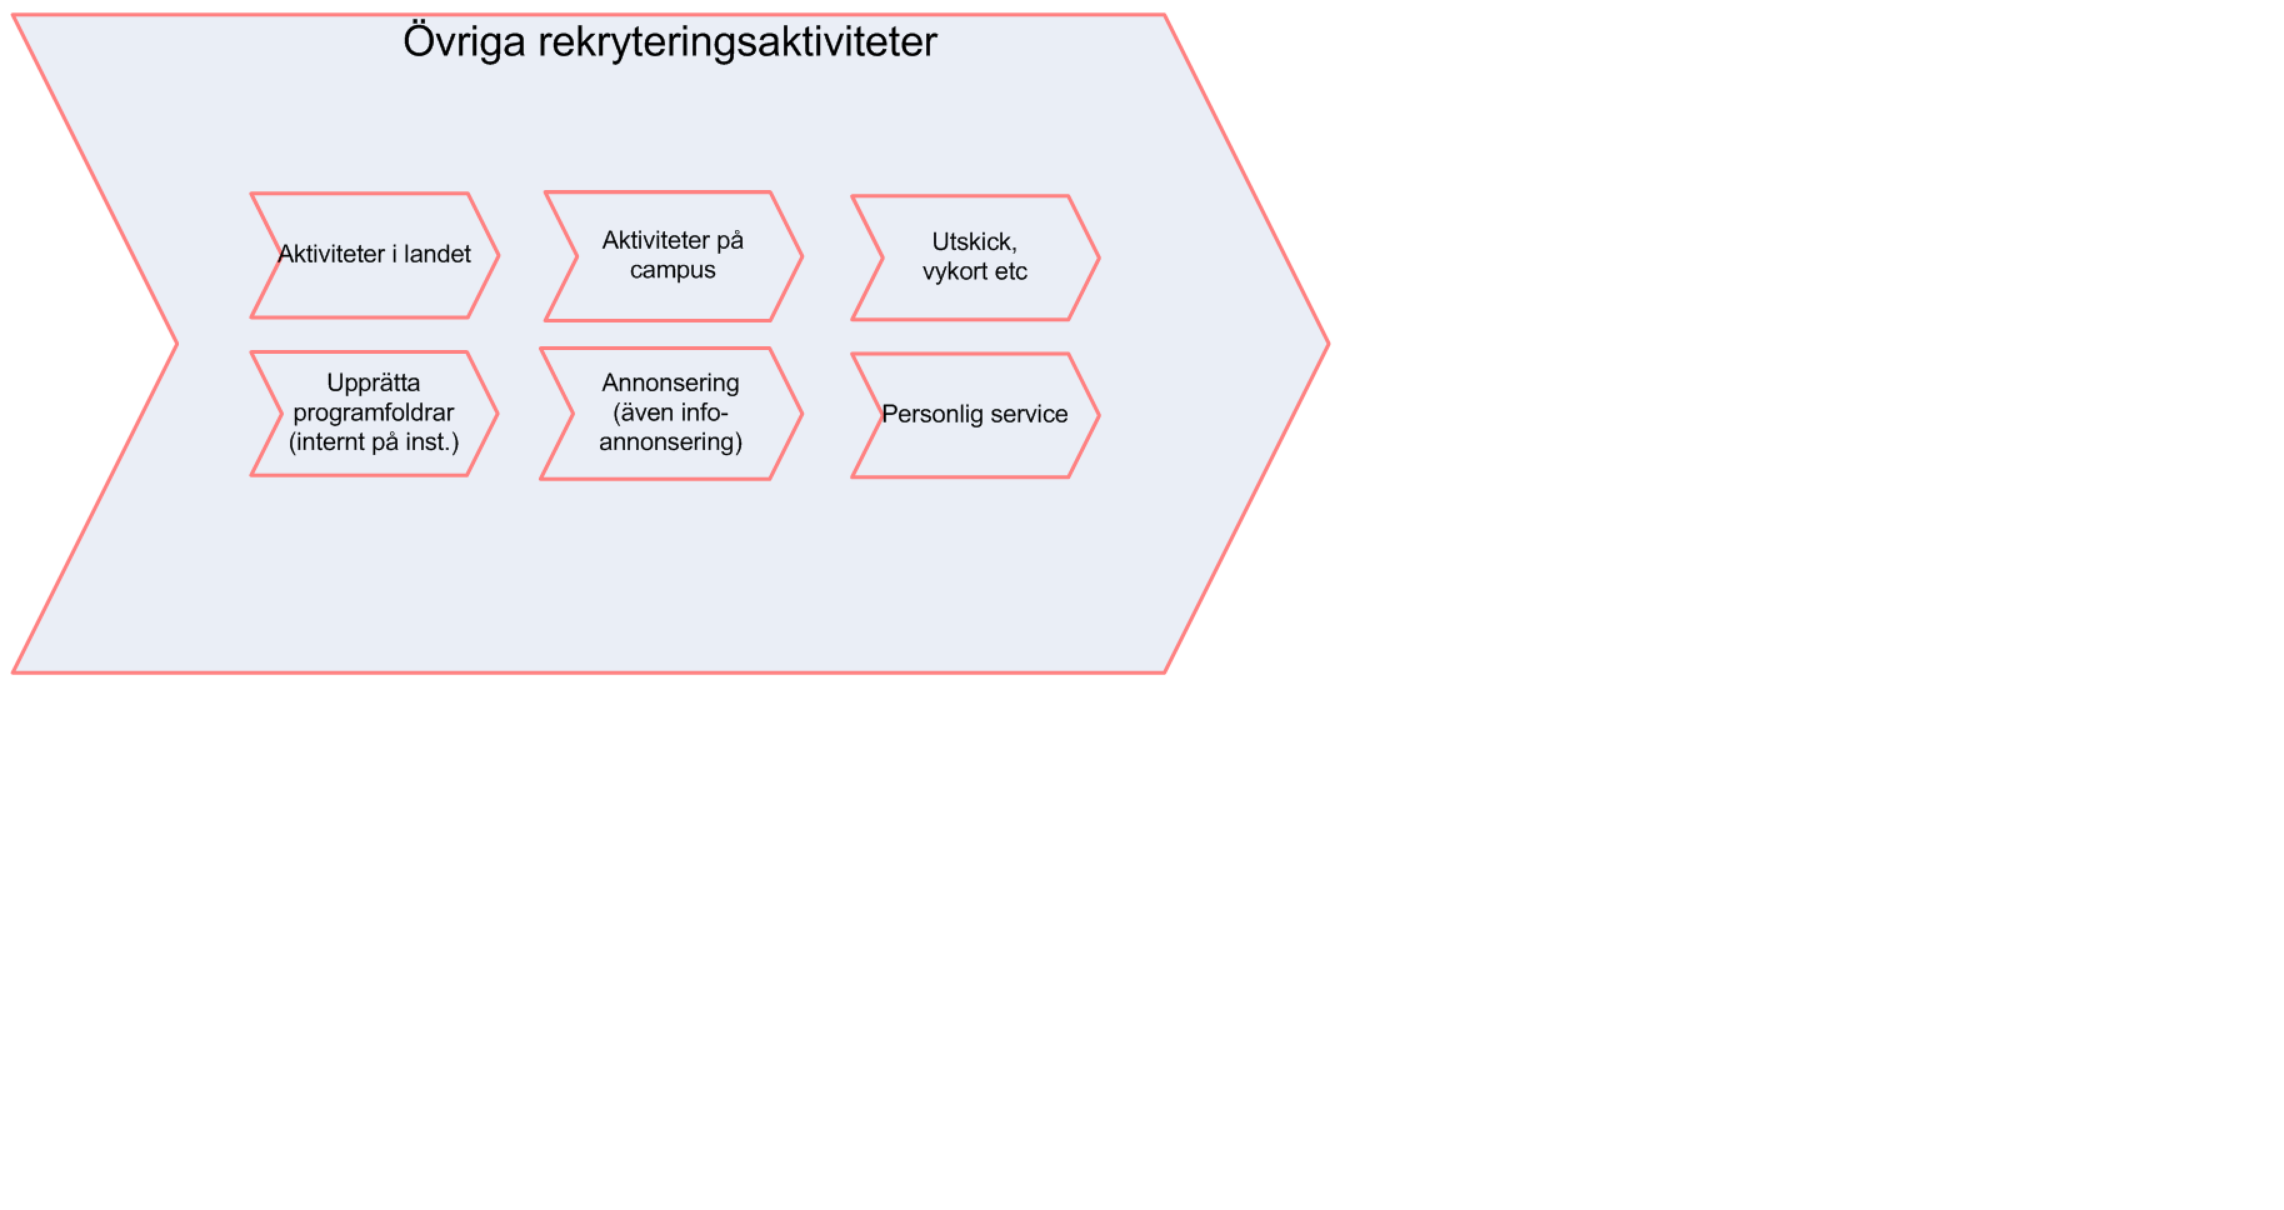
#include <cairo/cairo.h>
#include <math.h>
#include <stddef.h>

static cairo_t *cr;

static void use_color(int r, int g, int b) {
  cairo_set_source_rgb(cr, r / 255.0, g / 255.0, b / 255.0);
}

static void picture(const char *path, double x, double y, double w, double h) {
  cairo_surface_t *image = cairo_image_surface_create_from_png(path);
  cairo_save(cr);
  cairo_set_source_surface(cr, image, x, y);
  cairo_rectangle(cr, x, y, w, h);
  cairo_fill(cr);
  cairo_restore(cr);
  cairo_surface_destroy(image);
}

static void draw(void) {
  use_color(255, 255, 255);
  cairo_paint(cr);
  picture("img_01.png", 10, 12, 1322, 664);
}

int main(void) {
  cairo_surface_t *surface = cairo_image_surface_create(CAIRO_FORMAT_RGB24, 2284, 1210);
  cr = cairo_create(surface);
  cairo_font_options_t *options = cairo_font_options_create();
  cairo_font_options_set_hint_metrics(options, CAIRO_HINT_METRICS_OFF);
  cairo_font_options_set_hint_style(options, CAIRO_HINT_STYLE_NONE);
  cairo_set_font_options(cr, options);
  cairo_set_miter_limit(cr, 4);
  draw();
  cairo_surface_write_to_png(surface, "out.png");
  cairo_font_options_destroy(options);
  cairo_destroy(cr);
  cairo_surface_destroy(surface);
  return 0;
}
